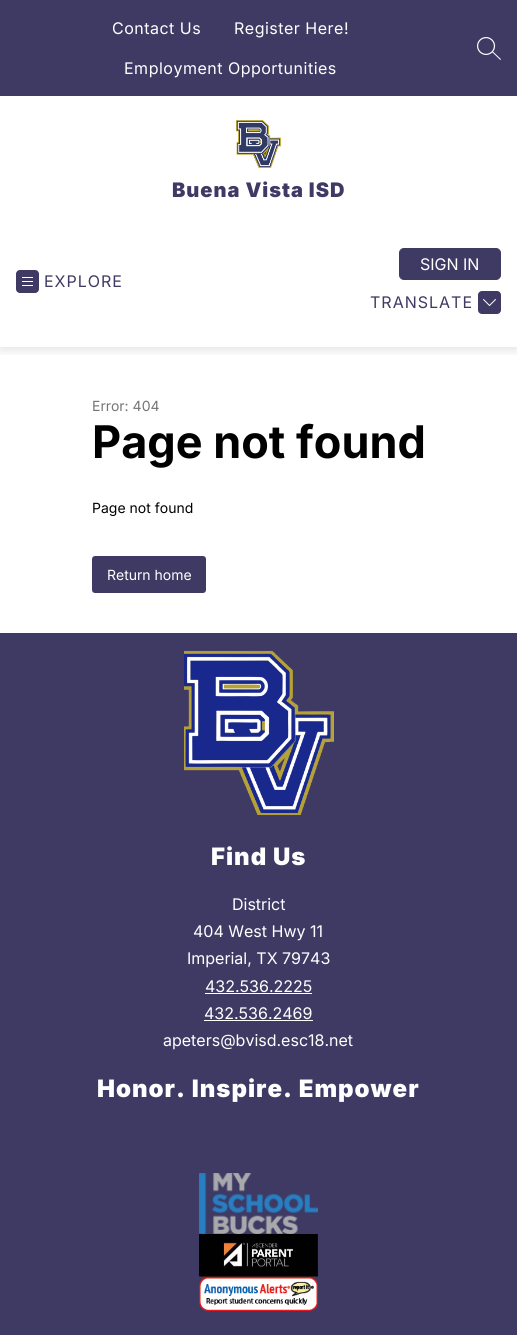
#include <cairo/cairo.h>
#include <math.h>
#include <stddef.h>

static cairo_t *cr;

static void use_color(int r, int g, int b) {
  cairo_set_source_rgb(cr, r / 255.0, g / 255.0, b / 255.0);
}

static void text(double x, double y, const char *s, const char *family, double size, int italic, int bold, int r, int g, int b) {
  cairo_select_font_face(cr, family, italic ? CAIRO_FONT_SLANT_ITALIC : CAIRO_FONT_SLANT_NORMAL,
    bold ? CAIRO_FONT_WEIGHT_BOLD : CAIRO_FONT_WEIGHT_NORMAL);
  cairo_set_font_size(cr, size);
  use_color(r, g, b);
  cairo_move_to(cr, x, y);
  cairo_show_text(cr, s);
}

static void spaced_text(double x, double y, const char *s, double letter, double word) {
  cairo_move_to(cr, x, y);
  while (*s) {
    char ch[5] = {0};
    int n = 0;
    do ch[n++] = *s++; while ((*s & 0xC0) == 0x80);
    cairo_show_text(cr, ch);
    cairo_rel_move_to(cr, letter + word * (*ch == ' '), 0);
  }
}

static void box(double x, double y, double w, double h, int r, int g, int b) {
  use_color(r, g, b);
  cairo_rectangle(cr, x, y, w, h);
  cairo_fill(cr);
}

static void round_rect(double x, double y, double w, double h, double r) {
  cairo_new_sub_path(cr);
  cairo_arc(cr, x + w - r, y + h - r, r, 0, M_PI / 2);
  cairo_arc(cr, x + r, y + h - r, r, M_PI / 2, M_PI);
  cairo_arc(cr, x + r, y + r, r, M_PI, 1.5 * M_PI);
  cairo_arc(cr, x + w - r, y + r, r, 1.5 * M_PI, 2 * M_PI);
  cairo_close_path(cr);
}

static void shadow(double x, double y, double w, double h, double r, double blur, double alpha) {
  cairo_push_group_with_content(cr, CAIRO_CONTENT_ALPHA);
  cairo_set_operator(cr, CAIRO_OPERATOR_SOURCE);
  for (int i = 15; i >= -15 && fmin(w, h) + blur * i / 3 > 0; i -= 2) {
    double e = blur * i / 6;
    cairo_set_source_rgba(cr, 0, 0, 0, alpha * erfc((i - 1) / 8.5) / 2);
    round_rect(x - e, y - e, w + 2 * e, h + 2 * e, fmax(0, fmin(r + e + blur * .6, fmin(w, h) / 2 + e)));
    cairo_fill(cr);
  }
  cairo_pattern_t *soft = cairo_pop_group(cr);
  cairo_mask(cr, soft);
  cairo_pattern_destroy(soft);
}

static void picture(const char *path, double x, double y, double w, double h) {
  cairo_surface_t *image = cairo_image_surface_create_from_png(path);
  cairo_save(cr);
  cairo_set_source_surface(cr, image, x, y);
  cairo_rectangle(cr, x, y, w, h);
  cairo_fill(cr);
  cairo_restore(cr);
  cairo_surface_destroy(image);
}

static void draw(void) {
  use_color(255, 255, 255);
  cairo_paint(cr);
  cairo_save(cr);
  cairo_rectangle(cr, 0, 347, 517, 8);
  cairo_clip(cr);
  use_color(0, 0, 0);
  shadow(0, 4, 517, 347, 0, 5, 0.1);
  cairo_restore(cr);
  box(0, 0, 517, 96, 63, 58, 100);
  picture("img_01.png", 477, 37, 24, 23);
  picture("img_02.png", 236, 120, 45, 48);
  picture("img_03.png", 16, 270, 23, 23);
  round_rect(399.5, 248.5, 101, 31, 4.5);
  cairo_fill_preserve(cr);
  cairo_set_line_width(cr, 1);
  cairo_stroke(cr);
  picture("img_04.png", 478, 291, 23, 23);
  round_rect(92, 556, 114, 37, 3);
  cairo_fill(cr);
  box(0, 633, 517, 702, 63, 58, 100);
  picture("img_05.png", 184, 650, 150, 166);
  box(205, 993, 107, 1, 255, 255, 255);
  box(204, 1020, 109, 1, 255, 255, 255);
  picture("img_06.png", 199, 1173, 119, 61);
  picture("img_07.png", 199, 1234, 119, 43);
  picture("img_08.png", 199, 1277, 119, 34);
  cairo_select_font_face(cr, "Inter", CAIRO_FONT_SLANT_NORMAL, CAIRO_FONT_WEIGHT_NORMAL);
  cairo_set_font_size(cr, 16);
  spaced_text(112, 34, "Contact Us", 0.5, 0);
  spaced_text(234, 34, "Register Here!", 0.5, 0);
  spaced_text(124, 74, "Employment Opportunities", 0.5, 0);
  cairo_select_font_face(cr, "Inter Black", CAIRO_FONT_SLANT_NORMAL, CAIRO_FONT_WEIGHT_NORMAL);
  cairo_set_font_size(cr, 20);
  use_color(63, 58, 100);
  spaced_text(172, 197, "Buena Vista ISD", 1, 0);
  cairo_select_font_face(cr, "Inter", CAIRO_FONT_SLANT_NORMAL, CAIRO_FONT_WEIGHT_NORMAL);
  cairo_set_font_size(cr, 16);
  spaced_text(44, 287, "EXPLORE", 1, 0);
  text(420, 270, "SIGN IN", "Inter", 16, 0, 0, 255, 255, 255);
  use_color(63, 58, 100);
  spaced_text(370, 308, "TRANSLATE", 1, 0);
  text(92, 411, "Error: 404", "Inter", 14, 0, 0, 116, 116, 116);
  text(92, 458, "Page not found", "Inter", 45, 0, 1, 0, 0, 0);
  text(92, 513, "Page not found", "Inter", 14, 0, 0, 0, 0, 0);
  text(107, 580, "Return home", "Inter", 14, 0, 0, 255, 255, 255);
  cairo_select_font_face(cr, "Inter Black", CAIRO_FONT_SLANT_NORMAL, CAIRO_FONT_WEIGHT_NORMAL);
  cairo_set_font_size(cr, 24);
  spaced_text(211, 865, "Find Us", 1, 0);
  text(232, 910, "District", "Inter", 16, 0, 0, 255, 255, 255);
  text(193, 937, "404 West Hwy 11", "Inter", 16, 0, 0, 255, 255, 255);
  text(187, 964, "Imperial, TX 79743", "Inter", 16, 0, 0, 255, 255, 255);
  text(205, 992, "432.536.2225", "Inter", 16, 0, 0, 255, 255, 255);
  text(204, 1019, "432.536.2469", "Inter", 16, 0, 0, 255, 255, 255);
  text(163, 1046, "apeters@bvisd.esc18.net", "Inter", 16, 0, 0, 255, 255, 255);
  cairo_select_font_face(cr, "Inter Black", CAIRO_FONT_SLANT_NORMAL, CAIRO_FONT_WEIGHT_NORMAL);
  cairo_set_font_size(cr, 24);
  spaced_text(97, 1097, "Honor. Inspire. Empower", 1, 0);
}

int main(void) {
  cairo_surface_t *surface = cairo_image_surface_create(CAIRO_FORMAT_RGB24, 517, 1335);
  cr = cairo_create(surface);
  cairo_font_options_t *options = cairo_font_options_create();
  cairo_font_options_set_hint_metrics(options, CAIRO_HINT_METRICS_OFF);
  cairo_font_options_set_hint_style(options, CAIRO_HINT_STYLE_NONE);
  cairo_set_font_options(cr, options);
  cairo_set_miter_limit(cr, 4);
  draw();
  cairo_surface_write_to_png(surface, "out.png");
  cairo_font_options_destroy(options);
  cairo_destroy(cr);
  cairo_surface_destroy(surface);
  return 0;
}
